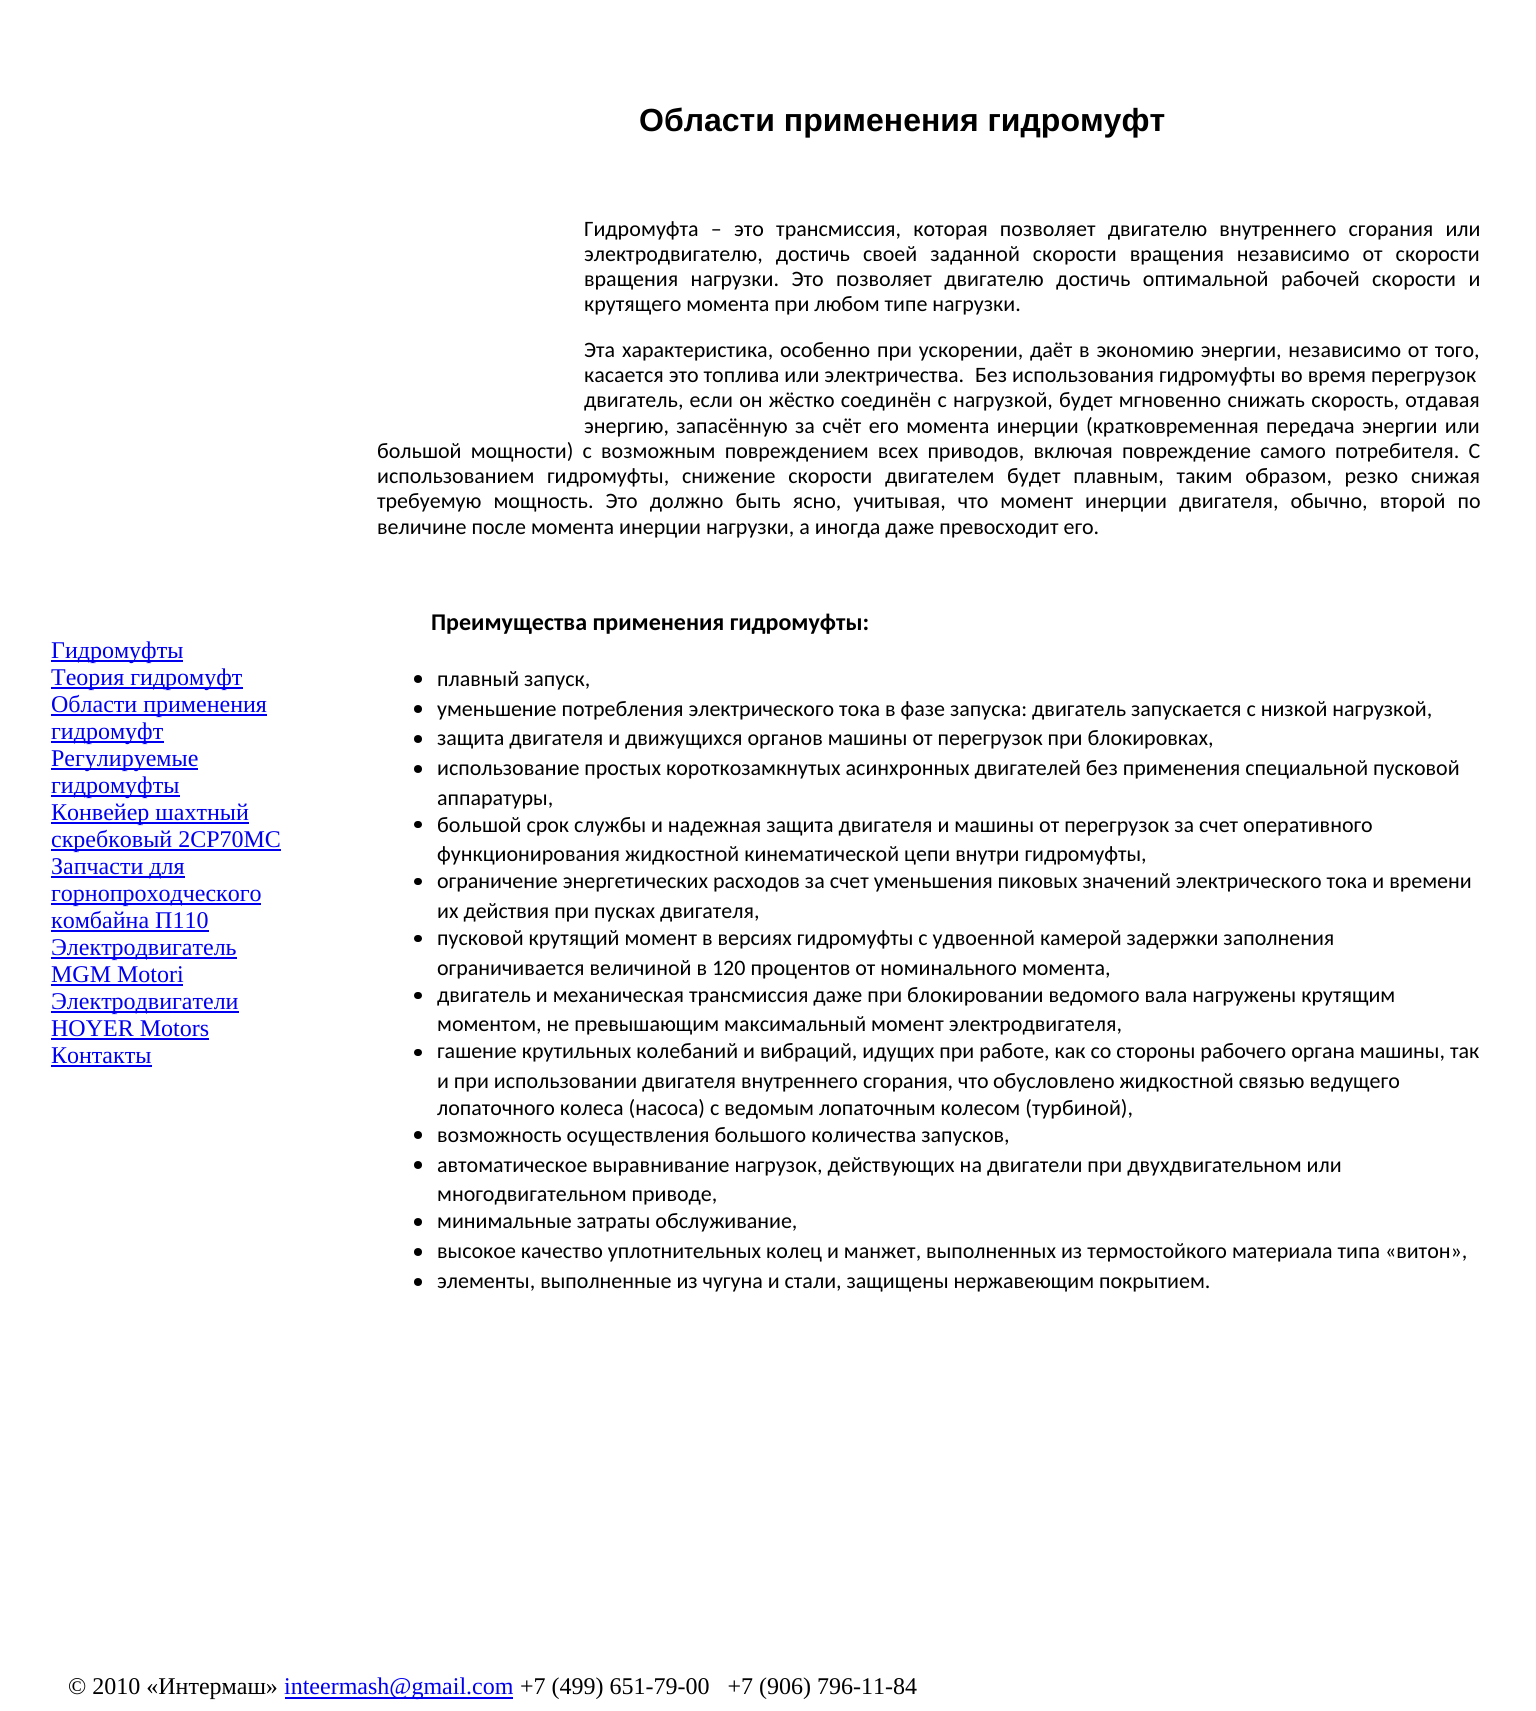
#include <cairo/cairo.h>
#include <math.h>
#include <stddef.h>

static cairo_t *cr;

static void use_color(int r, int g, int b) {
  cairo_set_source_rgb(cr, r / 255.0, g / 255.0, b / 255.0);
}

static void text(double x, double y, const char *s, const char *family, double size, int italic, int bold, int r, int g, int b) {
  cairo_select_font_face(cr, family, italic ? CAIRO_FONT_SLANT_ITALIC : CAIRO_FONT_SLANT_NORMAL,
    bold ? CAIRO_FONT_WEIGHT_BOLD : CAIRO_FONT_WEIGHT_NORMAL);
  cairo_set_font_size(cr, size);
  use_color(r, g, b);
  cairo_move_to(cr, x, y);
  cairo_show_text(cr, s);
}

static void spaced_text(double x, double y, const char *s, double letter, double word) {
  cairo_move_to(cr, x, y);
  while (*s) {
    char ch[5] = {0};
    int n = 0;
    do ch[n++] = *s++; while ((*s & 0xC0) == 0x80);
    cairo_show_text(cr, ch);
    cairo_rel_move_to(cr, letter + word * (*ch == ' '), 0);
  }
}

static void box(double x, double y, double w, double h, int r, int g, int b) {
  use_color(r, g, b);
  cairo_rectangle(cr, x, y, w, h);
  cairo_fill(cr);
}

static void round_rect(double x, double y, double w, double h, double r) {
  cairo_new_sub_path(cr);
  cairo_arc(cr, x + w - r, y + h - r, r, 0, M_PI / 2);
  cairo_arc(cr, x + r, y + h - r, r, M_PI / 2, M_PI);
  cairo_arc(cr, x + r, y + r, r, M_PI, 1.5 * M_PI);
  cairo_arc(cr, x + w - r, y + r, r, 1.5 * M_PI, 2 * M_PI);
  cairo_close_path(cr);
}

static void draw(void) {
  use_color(255, 255, 255);
  cairo_paint(cr);
  box(51, 660, 132, 2, 0, 0, 238);
  box(51, 687, 192, 2, 0, 0, 238);
  box(51, 714, 216, 2, 0, 0, 238);
  box(51, 741, 113, 2, 0, 0, 238);
  box(51, 768, 147, 2, 0, 0, 238);
  box(51, 795, 129, 2, 0, 0, 238);
  box(51, 822, 198, 2, 0, 0, 238);
  box(51, 849, 230, 2, 0, 0, 238);
  box(51, 876, 134, 2, 0, 0, 238);
  box(51, 903, 210, 2, 0, 0, 238);
  box(51, 930, 158, 2, 0, 0, 238);
  box(51, 957, 186, 2, 0, 0, 238);
  box(51, 984, 132, 2, 0, 0, 238);
  box(51, 1011, 188, 2, 0, 0, 238);
  box(51, 1038, 158, 2, 0, 0, 238);
  box(51, 1065, 101, 2, 0, 0, 238);
  use_color(0, 0, 0);
  cairo_arc(cr, 418, 679, 4, 0, 2 * M_PI);
  cairo_fill(cr);
  cairo_arc(cr, 418, 709, 4, 0, 2 * M_PI);
  cairo_fill(cr);
  cairo_arc(cr, 418, 739, 4, 0, 2 * M_PI);
  cairo_fill(cr);
  cairo_arc(cr, 418, 769, 4, 0, 2 * M_PI);
  cairo_fill(cr);
  round_rect(414, 821, 8, 7, 3.5);
  cairo_fill(cr);
  round_rect(414, 878, 8, 7, 3.5);
  cairo_fill(cr);
  round_rect(414, 935, 8, 7, 3.5);
  cairo_fill(cr);
  round_rect(414, 992, 8, 7, 3.5);
  cairo_fill(cr);
  round_rect(414, 1049, 8, 7, 3.5);
  cairo_fill(cr);
  cairo_arc(cr, 418, 1135, 4, 0, 2 * M_PI);
  cairo_fill(cr);
  cairo_arc(cr, 418, 1165, 4, 0, 2 * M_PI);
  cairo_fill(cr);
  cairo_arc(cr, 418, 1222, 4, 0, 2 * M_PI);
  cairo_fill(cr);
  cairo_arc(cr, 418, 1252, 4, 0, 2 * M_PI);
  cairo_fill(cr);
  cairo_arc(cr, 418, 1282, 4, 0, 2 * M_PI);
  cairo_fill(cr);
  box(285, 1697, 228, 2, 0, 0, 238);
  text(51, 658, "Гидромуфты", "Liberation Serif", 24, 0, 0, 0, 0, 238);
  text(51, 685, "Теория гидромуфт", "Liberation Serif", 24, 0, 0, 0, 0, 238);
  text(51, 712, "Области применения", "Liberation Serif", 24, 0, 0, 0, 0, 238);
  text(51, 739, "гидромуфт", "Liberation Serif", 24, 0, 0, 0, 0, 238);
  text(51, 766, "Регулируемые", "Liberation Serif", 24, 0, 0, 0, 0, 238);
  text(51, 793, "гидромуфты", "Liberation Serif", 24, 0, 0, 0, 0, 238);
  text(51, 820, "Конвейер шахтный", "Liberation Serif", 24, 0, 0, 0, 0, 238);
  text(51, 847, "скребковый 2CP70MC", "Liberation Serif", 24, 0, 0, 0, 0, 238);
  text(51, 874, "Запчасти для", "Liberation Serif", 24, 0, 0, 0, 0, 238);
  text(51, 901, "горнопроходческого", "Liberation Serif", 24, 0, 0, 0, 0, 238);
  text(51, 928, "комбайна П110", "Liberation Serif", 24, 0, 0, 0, 0, 238);
  text(51, 955, "Электродвигатель", "Liberation Serif", 24, 0, 0, 0, 0, 238);
  text(51, 982, "MGM Motori", "Liberation Serif", 24, 0, 0, 0, 0, 238);
  text(51, 1009, "Электродвигатели", "Liberation Serif", 24, 0, 0, 0, 0, 238);
  text(51, 1036, "HOYER Motors", "Liberation Serif", 24, 0, 0, 0, 0, 238);
  text(51, 1063, "Контакты", "Liberation Serif", 24, 0, 0, 0, 0, 238);
  text(639, 131, "Области применения гидромуфт", "Liberation Sans", 32, 0, 1, 0, 0, 0);
  text(584, 236, "Гидро", "Carlito", 22, 0, 0, 0, 0, 0);
  spaced_text(641, 236, "муфта – это трансмиссия, которая позволяет двигателю внутреннего сгорания или", 0, 7.25);
  spaced_text(584, 261, "электродвигателю, достичь своей заданной скорости вращения независимо от скорости", 0, 8);
  spaced_text(584, 286, "вращения нагрузки. Это позволяет двигателю достичь оптимальной рабочей скорости и", 0, 7.5);
  text(584, 311, "крутящего момента при любом типе нагрузки.", "Carlito", 22, 0, 0, 0, 0, 0);
  spaced_text(584, 357, "Эта характеристика, особенно при ускорении, даёт в экономию энергии, независимо от того,", 0, 1.8);
  text(584, 382, "касается это топлива или электричества.", "Carlito", 22, 0, 0, 0, 0, 0);
  text(975, 382, "Без использования гидромуфты во время перегрузок", "Carlito", 22, 0, 0, 0, 0, 0);
  spaced_text(584, 407, "двигатель, если он жёстко соединён с нагрузкой, будет мгновенно снижать скорость, отдавая", 0, 1.25);
  spaced_text(584, 433, "энергию, запасённую за счёт его момента инерции (кратковременная передача энергии или", 0, 2.4);
  spaced_text(377, 458, "большой мощности) с возможным повреждением всех приводов, включая повреждение самого потребителя. С", 0, 4.25);
  spaced_text(377, 483, "использованием гидромуфты, снижение скорости двигателем будет плавным, таким образом, резко снижая", 0, 7.75);
  spaced_text(377, 508, "требуемую мощность. Это должно быть ясно, учитывая, что момент инерции двигателя, обычно, второй по", 0, 7.1);
  text(377, 534, "величине после момента инерции нагрузки, а иногда даже превосходит его.", "Carlito", 22, 0, 0, 0, 0, 0);
  text(431, 630, "Преимущества применения гидромуфты:", "Carlito", 24, 0, 1, 0, 0, 0);
  text(437, 686, "плавный запуск,", "Carlito", 22, 0, 0, 0, 0, 0);
  text(437, 716, "уменьшение потребления электрического тока в фазе запуска: двигатель запускается с низкой нагрузкой,", "Carlito", 22, 0, 0, 0, 0, 0);
  text(437, 745, "защита двигателя и движущихся органов машины от перегрузок при блокировках,", "Carlito", 22, 0, 0, 0, 0, 0);
  text(437, 775, "использование простых короткозамкнутых асинхронных двигателей без применения специальной пусковой", "Carlito", 22, 0, 0, 0, 0, 0);
  text(437, 805, "аппаратуры,", "Carlito", 22, 0, 0, 0, 0, 0);
  text(437, 832, "большой срок службы и надежная защита двигателя и машины от перегрузок за счет оперативного", "Carlito", 22, 0, 0, 0, 0, 0);
  text(437, 861, "функционирования жидкостной кинематической цепи внутри гидромуфты,", "Carlito", 22, 0, 0, 0, 0, 0);
  text(437, 888, "ограничение энергетических расходов за счет уменьшения пиковых значений электрического тока и времени", "Carlito", 22, 0, 0, 0, 0, 0);
  text(437, 918, "их действия при пусках двигателя,", "Carlito", 22, 0, 0, 0, 0, 0);
  text(437, 945, "пусковой крутящий момент в версиях гидромуфты с удвоенной камерой задержки заполнения", "Carlito", 22, 0, 0, 0, 0, 0);
  text(437, 975, "ограничивается величиной в 120 процентов от номинального момента,", "Carlito", 22, 0, 0, 0, 0, 0);
  text(437, 1002, "двигатель и механическая трансмиссия даже при блокировании ведомого вала нагружены крутящим", "Carlito", 22, 0, 0, 0, 0, 0);
  text(437, 1031, "моментом, не превышающим максимальный момент электродвигателя,", "Carlito", 22, 0, 0, 0, 0, 0);
  text(437, 1058, "гашение крутильных колебаний и вибраций, идущих при работе, как со стороны рабочего органа машины, так", "Carlito", 22, 0, 0, 0, 0, 0);
  text(437, 1088, "и при использовании двигателя внутреннего сгорания, что", "Carlito", 22, 0, 0, 0, 0, 0);
  text(993, 1088, "обусловлено жидкостной связью ведущего", "Carlito", 22, 0, 0, 0, 0, 0);
  text(437, 1115, "лопаточного колеса (насоса) с ведомым лопаточным колесом (турбиной),", "Carlito", 22, 0, 0, 0, 0, 0);
  text(437, 1142, "возможность осуществления большого количества запусков,", "Carlito", 22, 0, 0, 0, 0, 0);
  text(437, 1172, "автоматическое выравнивание нагрузок, действующих на двигатели при двухдвигательном или", "Carlito", 22, 0, 0, 0, 0, 0);
  text(437, 1201, "многодвигательном приводе,", "Carlito", 22, 0, 0, 0, 0, 0);
  text(437, 1228, "минимальные затраты обслуживание,", "Carlito", 22, 0, 0, 0, 0, 0);
  text(437, 1258, "высокое качество уплотнительных колец и манжет, выполненных из термостойкого материала типа «витон»,", "Carlito", 22, 0, 0, 0, 0, 0);
  text(437, 1288, "элементы, выполненные из чугуна и стали, защищены нержавеющим покрытием.", "Carlito", 22, 0, 0, 0, 0, 0);
  text(68, 1694, "© 2010 «Интермаш»", "Liberation Serif", 24, 0, 0, 0, 0, 0);
  text(284, 1694, "inteermash@gmail.com", "Liberation Serif", 24, 0, 0, 0, 0, 238);
  text(520, 1694, "+7 (499) 651-79-00   +7 (906) 796-11-84", "Liberation Serif", 24, 0, 0, 0, 0, 0);
}

int main(void) {
  cairo_surface_t *surface = cairo_image_surface_create(CAIRO_FORMAT_RGB24, 1536, 1711);
  cr = cairo_create(surface);
  cairo_font_options_t *options = cairo_font_options_create();
  cairo_font_options_set_hint_metrics(options, CAIRO_HINT_METRICS_OFF);
  cairo_font_options_set_hint_style(options, CAIRO_HINT_STYLE_NONE);
  cairo_set_font_options(cr, options);
  cairo_set_miter_limit(cr, 4);
  draw();
  cairo_surface_write_to_png(surface, "out.png");
  cairo_font_options_destroy(options);
  cairo_destroy(cr);
  cairo_surface_destroy(surface);
  return 0;
}
